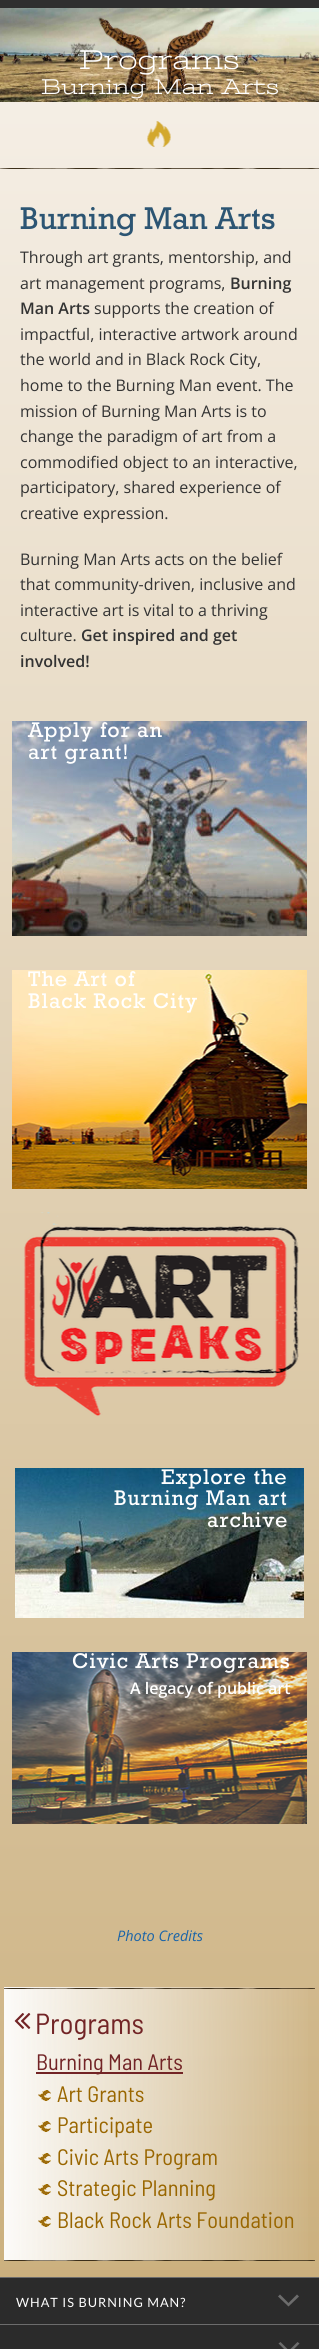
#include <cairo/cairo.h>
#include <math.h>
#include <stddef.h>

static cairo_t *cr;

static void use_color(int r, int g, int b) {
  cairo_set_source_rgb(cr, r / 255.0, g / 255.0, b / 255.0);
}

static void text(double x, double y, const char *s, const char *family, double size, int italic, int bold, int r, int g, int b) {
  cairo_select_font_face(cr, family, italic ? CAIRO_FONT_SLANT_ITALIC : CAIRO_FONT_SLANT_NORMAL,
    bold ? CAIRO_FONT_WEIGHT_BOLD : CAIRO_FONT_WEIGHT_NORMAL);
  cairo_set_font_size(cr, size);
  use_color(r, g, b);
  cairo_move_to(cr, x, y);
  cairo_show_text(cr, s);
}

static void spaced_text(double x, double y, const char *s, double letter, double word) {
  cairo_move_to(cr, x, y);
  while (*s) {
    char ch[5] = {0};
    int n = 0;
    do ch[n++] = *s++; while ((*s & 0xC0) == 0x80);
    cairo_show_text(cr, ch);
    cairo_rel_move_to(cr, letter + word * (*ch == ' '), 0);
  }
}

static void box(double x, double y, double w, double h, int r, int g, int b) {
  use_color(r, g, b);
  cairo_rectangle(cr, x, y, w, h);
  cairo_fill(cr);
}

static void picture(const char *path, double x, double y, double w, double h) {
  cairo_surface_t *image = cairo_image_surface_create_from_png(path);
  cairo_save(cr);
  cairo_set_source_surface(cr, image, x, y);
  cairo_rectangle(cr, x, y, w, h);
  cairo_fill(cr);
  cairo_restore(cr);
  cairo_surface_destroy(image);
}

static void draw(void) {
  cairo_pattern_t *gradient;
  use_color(255, 255, 255);
  cairo_paint(cr);
  gradient = cairo_pattern_create_linear(159, -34, 160, 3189);
  cairo_pattern_add_color_stop_rgba(gradient, 0, 0.969, 0.949, 0.922, 1);
  cairo_pattern_add_color_stop_rgba(gradient, 0.97, 0.737, 0.6, 0.345, 1);
  cairo_pattern_add_color_stop_rgba(gradient, 1, 0.737, 0.6, 0.345, 1);
  cairo_set_source(cr, gradient);
  cairo_pattern_destroy(gradient);
  cairo_rectangle(cr, 0, 102, 319, 2175);
  cairo_fill(cr);
  box(0, 0, 319, 8, 47, 47, 47);
  picture("img_01.png", 0, 8, 319, 94);
  picture("img_02.png", 0, 121, 319, 48);
  picture("img_03.png", 12, 721, 295, 215);
  picture("img_04.png", 12, 970, 295, 219);
  picture("img_05.png", 24, 1212, 275, 204);
  picture("img_06.png", 15, 1468, 289, 150);
  picture("img_07.png", 12, 1652, 295, 172);
  gradient = cairo_pattern_create_linear(4, 2124, 315, 2124);
  cairo_pattern_add_color_stop_rgba(gradient, 0, 0.988, 0.984, 0.976, 1);
  cairo_pattern_add_color_stop_rgba(gradient, 1, 0.988, 0.984, 0.976, 0);
  cairo_set_source(cr, gradient);
  cairo_pattern_destroy(gradient);
  cairo_rectangle(cr, 4, 1987, 304, 274);
  cairo_fill(cr);
  picture("img_08.png", 4, 1988, 311, 1);
  picture("img_09.png", 14, 2013, 17, 16);
  box(36, 2072, 147, 2, 114, 36, 38);
  picture("img_10.png", 38, 2090, 13, 11);
  picture("img_11.png", 38, 2121, 13, 11);
  picture("img_12.png", 38, 2153, 13, 11);
  picture("img_13.png", 38, 2184, 13, 11);
  picture("img_14.png", 38, 2216, 13, 11);
  picture("img_15.png", 4, 2260, 311, 1);
  box(0, 2278, 319, 71, 43, 43, 43);
  box(0, 2277, 319, 1, 108, 108, 108);
  box(0, 2324, 319, 1, 108, 108, 108);
  cairo_new_path(cr);
  cairo_move_to(cr, 280, 2294.5);
  cairo_line_to(cr, 278, 2296.5);
  cairo_line_to(cr, 288.5, 2306.5);
  cairo_line_to(cr, 299, 2296.5);
  cairo_line_to(cr, 297, 2294.5);
  cairo_line_to(cr, 288.5, 2303);
  cairo_close_path(cr);
  cairo_move_to(cr, 280.5, 2342);
  cairo_line_to(cr, 278.5, 2343.5);
  cairo_line_to(cr, 289, 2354);
  cairo_line_to(cr, 299.5, 2343.5);
  cairo_line_to(cr, 297.5, 2342);
  cairo_line_to(cr, 289, 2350.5);
  cairo_close_path(cr);
  cairo_fill(cr);
  text(79, 69, "Programs", "Stint Ultra Expanded", 28, 0, 0, 255, 255, 255);
  text(41, 94, "Burning Man Arts", "Stint Ultra Expanded", 22, 0, 0, 255, 255, 255);
  text(20, 229, "Burning Man Arts", "Rockwell", 32, 0, 0, 44, 85, 115);
  text(20, 263, "Through art grants, mentorship, and", "Open Sans", 16, 0, 0, 51, 51, 51);
  text(20, 289, "art management programs,", "Open Sans", 16, 0, 0, 51, 51, 51);
  text(230, 289, "Burning", "Open Sans SemiBold", 16, 0, 0, 51, 51, 51);
  text(20, 314, "Man Arts", "Open Sans SemiBold", 16, 0, 0, 51, 51, 51);
  text(94, 314, "supports the creation of", "Open Sans", 16, 0, 0, 51, 51, 51);
  text(20, 340, "impactful, interactive artwork around", "Open Sans", 16, 0, 0, 51, 51, 51);
  text(20, 365, "the world and in Black Rock City,", "Open Sans", 16, 0, 0, 51, 51, 51);
  text(20, 391, "home to the Burning Man event. The", "Open Sans", 16, 0, 0, 51, 51, 51);
  text(20, 417, "mission of Burning Man Arts is to", "Open Sans", 16, 0, 0, 51, 51, 51);
  text(20, 442, "change the paradigm of art from a", "Open Sans", 16, 0, 0, 51, 51, 51);
  text(20, 468, "commodified object to an interactive,", "Open Sans", 16, 0, 0, 51, 51, 51);
  text(20, 493, "participatory, shared experience of", "Open Sans", 16, 0, 0, 51, 51, 51);
  text(20, 519, "creative expression.", "Open Sans", 16, 0, 0, 51, 51, 51);
  text(20, 565, "Burning Man Arts acts on the belief", "Open Sans", 16, 0, 0, 51, 51, 51);
  text(20, 590, "that community-driven, inclusive and", "Open Sans", 16, 0, 0, 51, 51, 51);
  text(20, 616, "interactive art is vital to a thriving", "Open Sans", 16, 0, 0, 51, 51, 51);
  text(20, 641, "culture.", "Open Sans", 16, 0, 0, 51, 51, 51);
  text(81, 641, "Get inspired and get", "Open Sans SemiBold", 16, 0, 0, 51, 51, 51);
  text(20, 667, "involved!", "Open Sans SemiBold", 16, 0, 0, 51, 51, 51);
  cairo_select_font_face(cr, "Rockwell", CAIRO_FONT_SLANT_NORMAL, CAIRO_FONT_WEIGHT_NORMAL);
  cairo_set_font_size(cr, 21.6);
  use_color(255, 255, 255);
  spaced_text(28, 737, "Apply for an", 1, 0);
  spaced_text(28, 759, "art grant!", 1, 0);
  spaced_text(28, 986, "The Art of", 1, 0);
  spaced_text(28, 1008, "Black Rock City", 1, 0);
  spaced_text(161, 1484, "Explore the", 1, 0);
  spaced_text(114, 1505, "Burning Man art", 1, 0);
  spaced_text(207, 1527, "archive", 1, 0);
  spaced_text(72, 1668, "Civic Arts Programs", 1, 0);
  text(130, 1694, "A legacy of public art", "Open Sans SemiBold", 16, 0, 0, 255, 255, 255);
  text(117, 1941, "Photo Credits", "Open Sans", 14.5, 1, 0, 26, 100, 168);
  text(35, 2034, "Programs", "Barlow Semi Condensed", 29, 0, 0, 114, 36, 38);
  text(36, 2070, "Burning Man Arts", "Barlow Semi Condensed", 22.4, 0, 0, 114, 36, 38);
  text(57, 2102, "Art Grants", "Barlow Semi Condensed", 22.4, 0, 0, 153, 102, 0);
  text(57, 2133, "Participate", "Barlow Semi Condensed", 22.4, 0, 0, 153, 102, 0);
  text(57, 2165, "Civic Arts Program", "Barlow Semi Condensed", 22.4, 0, 0, 153, 102, 0);
  text(57, 2196, "Strategic Planning", "Barlow Semi Condensed", 22.4, 0, 0, 153, 102, 0);
  text(57, 2228, "Black Rock Arts Foundation", "Barlow Semi Condensed", 22.4, 0, 0, 153, 102, 0);
  cairo_select_font_face(cr, "Lato", CAIRO_FONT_SLANT_NORMAL, CAIRO_FONT_WEIGHT_NORMAL);
  cairo_set_font_size(cr, 12.75);
  use_color(255, 255, 255);
  spaced_text(16, 2307, "WHAT IS BURNING MAN?", 1, 0);
}

int main(void) {
  cairo_surface_t *surface = cairo_image_surface_create(CAIRO_FORMAT_RGB24, 319, 2349);
  cr = cairo_create(surface);
  cairo_font_options_t *options = cairo_font_options_create();
  cairo_font_options_set_hint_metrics(options, CAIRO_HINT_METRICS_OFF);
  cairo_font_options_set_hint_style(options, CAIRO_HINT_STYLE_NONE);
  cairo_set_font_options(cr, options);
  cairo_set_miter_limit(cr, 4);
  draw();
  cairo_surface_write_to_png(surface, "out.png");
  cairo_font_options_destroy(options);
  cairo_destroy(cr);
  cairo_surface_destroy(surface);
  return 0;
}
